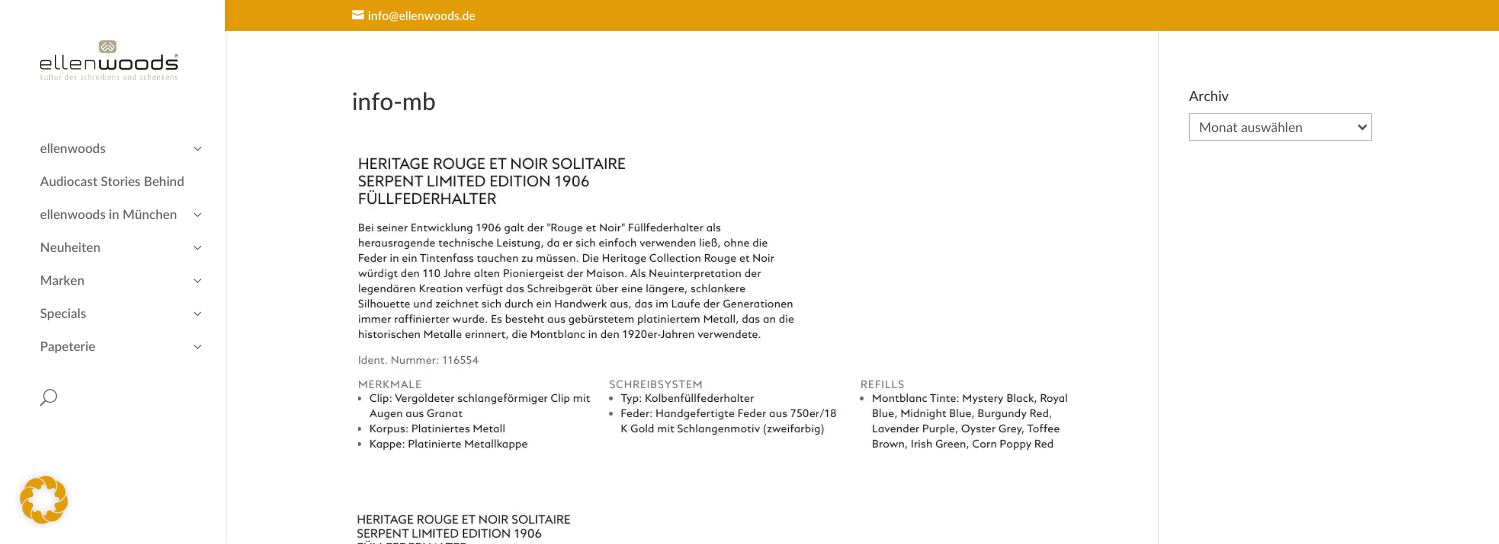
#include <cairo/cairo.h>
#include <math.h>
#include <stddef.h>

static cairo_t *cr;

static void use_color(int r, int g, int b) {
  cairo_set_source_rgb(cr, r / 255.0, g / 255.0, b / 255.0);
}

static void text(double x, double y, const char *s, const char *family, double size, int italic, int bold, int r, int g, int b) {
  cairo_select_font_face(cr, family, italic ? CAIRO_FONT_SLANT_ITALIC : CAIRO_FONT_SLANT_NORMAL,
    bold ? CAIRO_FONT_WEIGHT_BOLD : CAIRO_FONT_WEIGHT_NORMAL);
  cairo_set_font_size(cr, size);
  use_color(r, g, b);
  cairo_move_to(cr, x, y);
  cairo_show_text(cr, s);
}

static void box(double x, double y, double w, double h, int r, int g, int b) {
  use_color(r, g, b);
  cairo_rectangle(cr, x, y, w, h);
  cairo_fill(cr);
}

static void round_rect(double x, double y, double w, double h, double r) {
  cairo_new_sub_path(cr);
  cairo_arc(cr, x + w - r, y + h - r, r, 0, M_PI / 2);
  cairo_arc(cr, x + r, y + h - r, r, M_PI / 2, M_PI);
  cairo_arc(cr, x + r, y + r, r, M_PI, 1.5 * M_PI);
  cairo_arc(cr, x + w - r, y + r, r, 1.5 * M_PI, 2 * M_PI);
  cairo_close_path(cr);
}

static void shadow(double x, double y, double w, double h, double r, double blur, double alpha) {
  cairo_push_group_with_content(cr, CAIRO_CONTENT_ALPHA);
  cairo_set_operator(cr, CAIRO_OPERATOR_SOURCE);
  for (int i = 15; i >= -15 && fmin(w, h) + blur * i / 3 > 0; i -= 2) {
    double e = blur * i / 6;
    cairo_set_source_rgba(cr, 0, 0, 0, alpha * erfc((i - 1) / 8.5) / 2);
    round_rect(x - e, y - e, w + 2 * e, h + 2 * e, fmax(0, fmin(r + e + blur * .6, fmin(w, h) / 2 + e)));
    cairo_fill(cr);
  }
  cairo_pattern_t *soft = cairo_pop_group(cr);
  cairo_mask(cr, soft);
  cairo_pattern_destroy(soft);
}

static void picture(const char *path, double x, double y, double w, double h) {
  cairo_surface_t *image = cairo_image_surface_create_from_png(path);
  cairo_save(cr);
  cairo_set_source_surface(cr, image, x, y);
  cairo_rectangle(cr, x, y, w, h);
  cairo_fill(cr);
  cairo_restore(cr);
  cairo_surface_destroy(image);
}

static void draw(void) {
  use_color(255, 255, 255);
  cairo_paint(cr);
  box(225, 0, 1274, 31, 225, 156, 8);
  picture("img_01.png", 352, 10, 12, 10);
  box(1158, 31, 1, 513, 226, 226, 226);
  picture("img_02.png", 358, 155, 710, 296);
  picture("img_03.png", 356, 511, 216, 33);
  cairo_rectangle(cr, 1189.5, 113.5, 182, 27);
  use_color(187, 187, 187);
  cairo_set_line_width(cr, 1);
  cairo_stroke(cr);
  cairo_new_path(cr);
  cairo_move_to(cr, 1358.5, 125);
  cairo_line_to(cr, 1362.5, 129);
  cairo_line_to(cr, 1366.5, 125);
  use_color(78, 78, 78);
  cairo_set_line_width(cr, 2);
  cairo_stroke(cr);
  cairo_save(cr);
  cairo_rectangle(cr, 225, 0, 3, 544);
  cairo_clip(cr);
  use_color(0, 0, 0);
  shadow(0, 0, 225, 544, 0, 3.5, 0.1);
  cairo_restore(cr);
  picture("img_04.png", 40, 40, 138, 40);
  picture("img_05.png", 193, 146, 9, 5);
  picture("img_05.png", 193, 212, 9, 5);
  picture("img_05.png", 193, 245, 9, 5);
  picture("img_05.png", 193, 278, 9, 5);
  picture("img_05.png", 193, 311, 9, 5);
  picture("img_05.png", 193, 344, 9, 5);
  picture("img_06.png", 40, 389, 17, 18);
  picture("img_07.png", 15, 471, 57, 57);
  text(368, 20, "info@ellenwoods.de", "Lato SemiBold", 12, 0, 0, 255, 255, 255);
  text(352, 110, "info-mb", "Lato Medium", 24, 0, 0, 51, 51, 51);
  text(1189, 101, "Archiv", "Lato Medium", 14, 0, 0, 51, 51, 51);
  text(1199, 132, "Monat auswählen", "Lato", 13.25, 0, 0, 78, 78, 78);
  text(40, 153, "ellenwoods", "Lato SemiBold", 13, 0, 0, 102, 102, 102);
  text(40, 186, "Audiocast Stories Behind", "Lato SemiBold", 13, 0, 0, 102, 102, 102);
  text(40, 219, "ellenwoods in München", "Lato SemiBold", 13, 0, 0, 102, 102, 102);
  text(40, 252, "Neuheiten", "Lato SemiBold", 13, 0, 0, 102, 102, 102);
  text(40, 285, "Marken", "Lato SemiBold", 13, 0, 0, 102, 102, 102);
  text(40, 318, "Specials", "Lato SemiBold", 13, 0, 0, 102, 102, 102);
  text(40, 351, "Papeterie", "Lato SemiBold", 13, 0, 0, 102, 102, 102);
}

int main(void) {
  cairo_surface_t *surface = cairo_image_surface_create(CAIRO_FORMAT_RGB24, 1499, 544);
  cr = cairo_create(surface);
  cairo_font_options_t *options = cairo_font_options_create();
  cairo_font_options_set_hint_metrics(options, CAIRO_HINT_METRICS_OFF);
  cairo_font_options_set_hint_style(options, CAIRO_HINT_STYLE_NONE);
  cairo_set_font_options(cr, options);
  cairo_set_miter_limit(cr, 4);
  draw();
  cairo_surface_write_to_png(surface, "out.png");
  cairo_font_options_destroy(options);
  cairo_destroy(cr);
  cairo_surface_destroy(surface);
  return 0;
}
